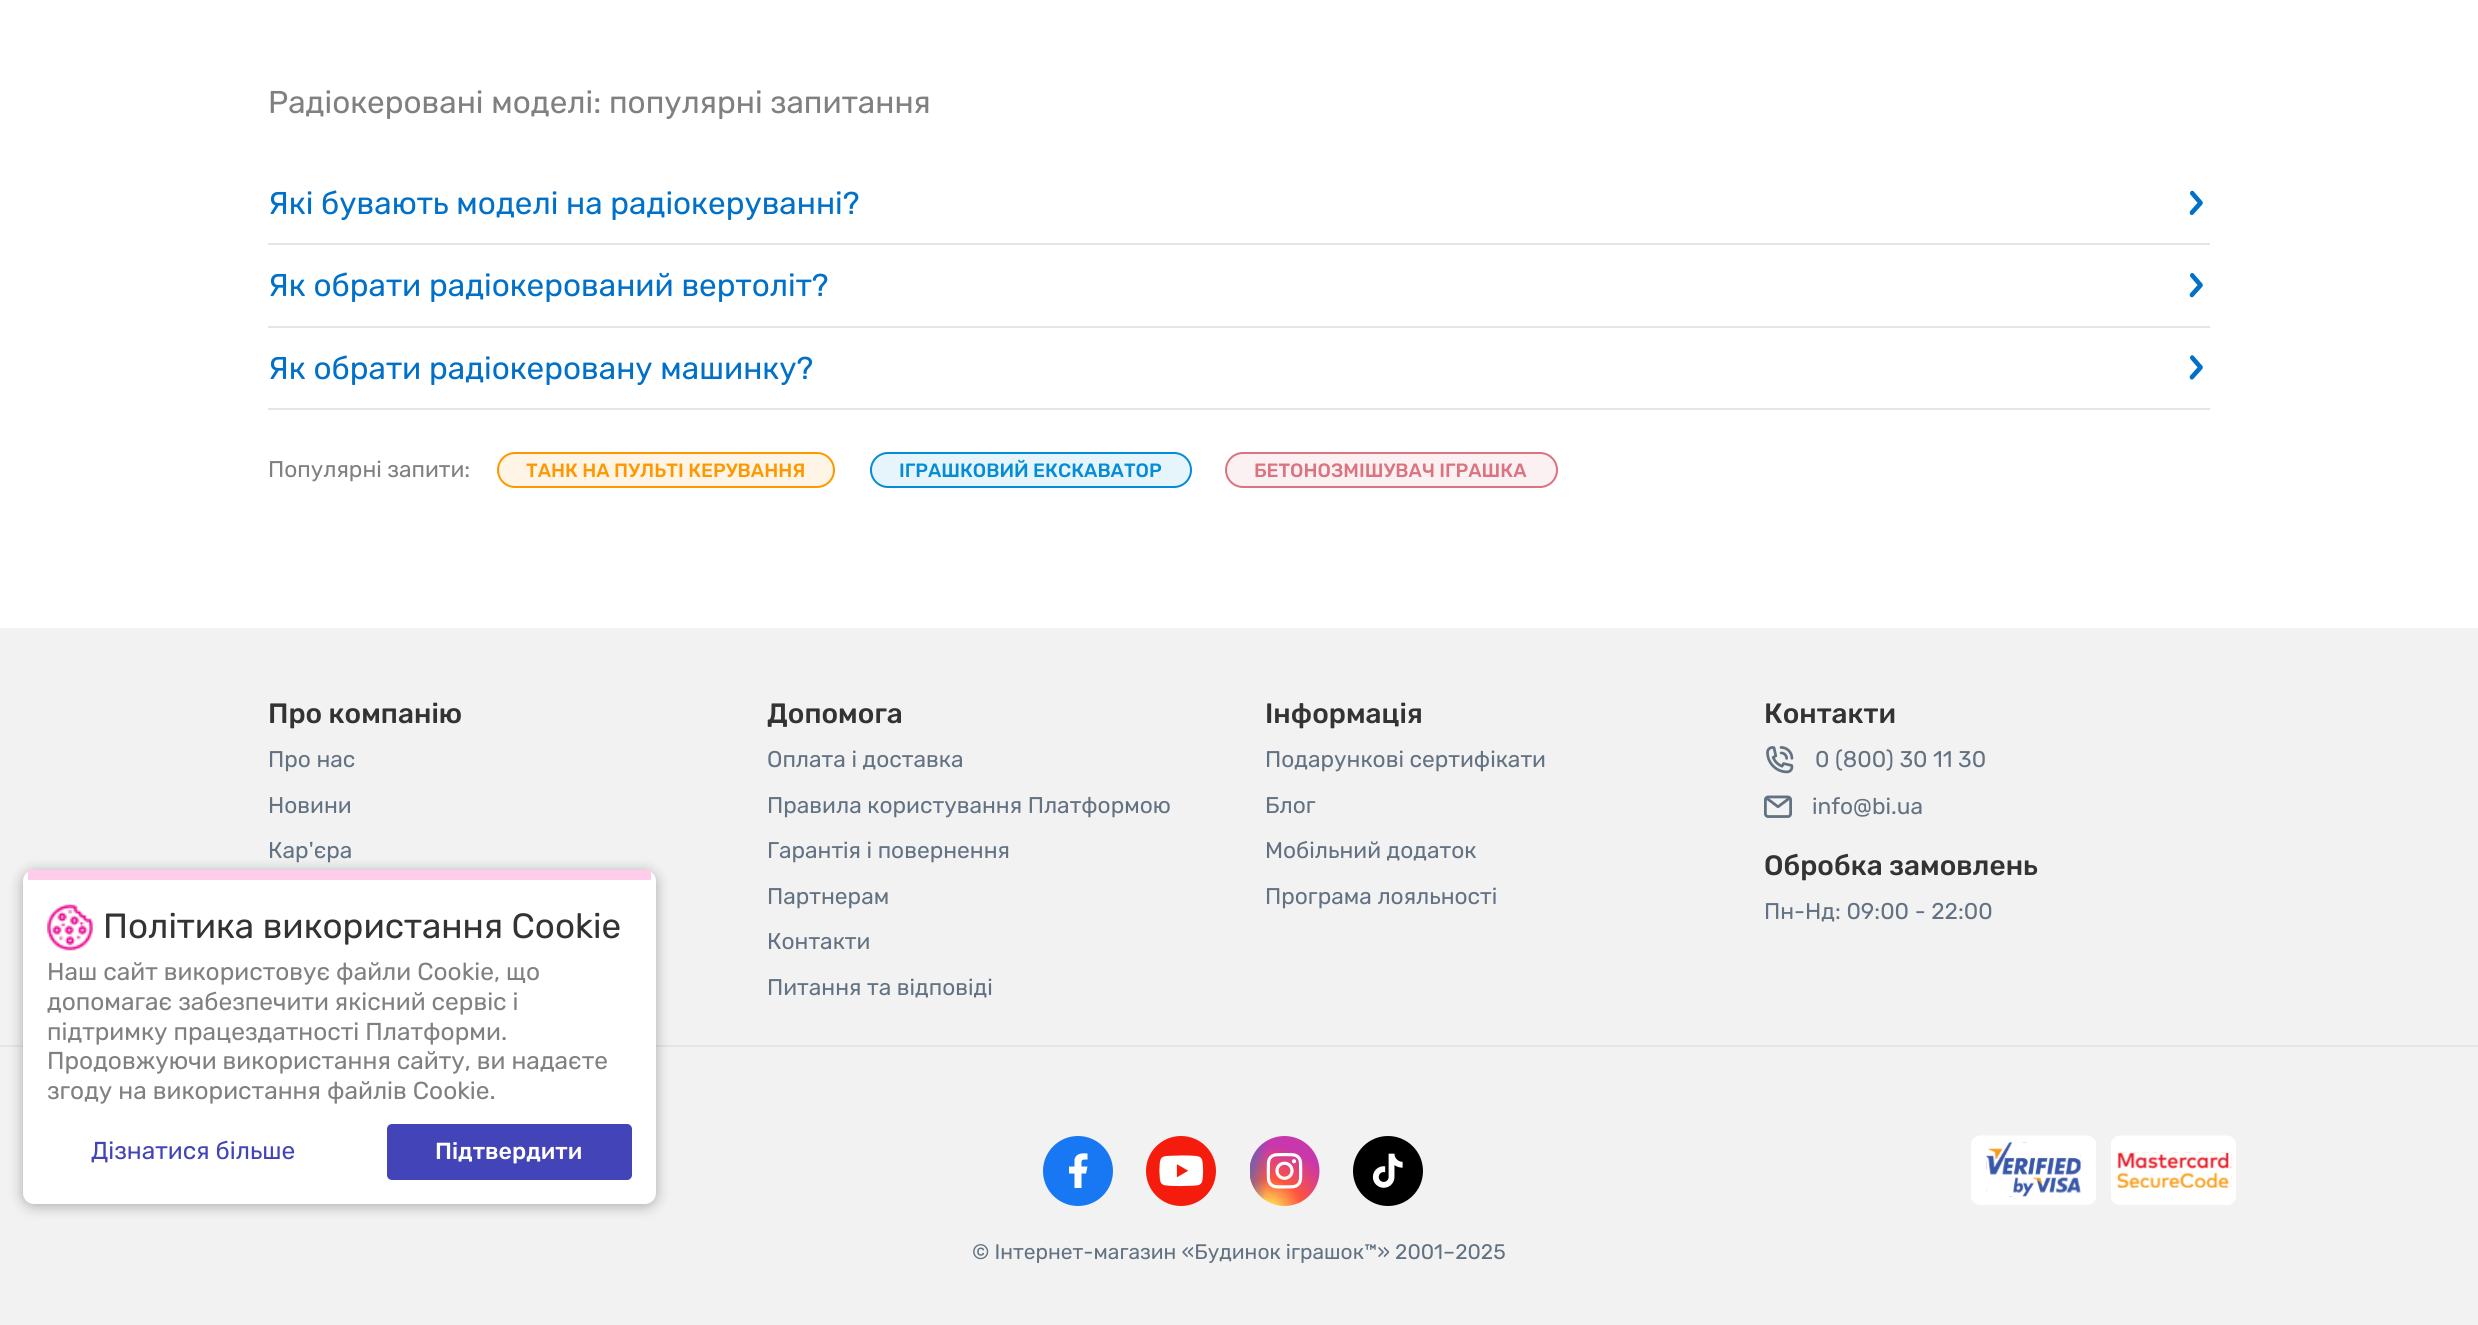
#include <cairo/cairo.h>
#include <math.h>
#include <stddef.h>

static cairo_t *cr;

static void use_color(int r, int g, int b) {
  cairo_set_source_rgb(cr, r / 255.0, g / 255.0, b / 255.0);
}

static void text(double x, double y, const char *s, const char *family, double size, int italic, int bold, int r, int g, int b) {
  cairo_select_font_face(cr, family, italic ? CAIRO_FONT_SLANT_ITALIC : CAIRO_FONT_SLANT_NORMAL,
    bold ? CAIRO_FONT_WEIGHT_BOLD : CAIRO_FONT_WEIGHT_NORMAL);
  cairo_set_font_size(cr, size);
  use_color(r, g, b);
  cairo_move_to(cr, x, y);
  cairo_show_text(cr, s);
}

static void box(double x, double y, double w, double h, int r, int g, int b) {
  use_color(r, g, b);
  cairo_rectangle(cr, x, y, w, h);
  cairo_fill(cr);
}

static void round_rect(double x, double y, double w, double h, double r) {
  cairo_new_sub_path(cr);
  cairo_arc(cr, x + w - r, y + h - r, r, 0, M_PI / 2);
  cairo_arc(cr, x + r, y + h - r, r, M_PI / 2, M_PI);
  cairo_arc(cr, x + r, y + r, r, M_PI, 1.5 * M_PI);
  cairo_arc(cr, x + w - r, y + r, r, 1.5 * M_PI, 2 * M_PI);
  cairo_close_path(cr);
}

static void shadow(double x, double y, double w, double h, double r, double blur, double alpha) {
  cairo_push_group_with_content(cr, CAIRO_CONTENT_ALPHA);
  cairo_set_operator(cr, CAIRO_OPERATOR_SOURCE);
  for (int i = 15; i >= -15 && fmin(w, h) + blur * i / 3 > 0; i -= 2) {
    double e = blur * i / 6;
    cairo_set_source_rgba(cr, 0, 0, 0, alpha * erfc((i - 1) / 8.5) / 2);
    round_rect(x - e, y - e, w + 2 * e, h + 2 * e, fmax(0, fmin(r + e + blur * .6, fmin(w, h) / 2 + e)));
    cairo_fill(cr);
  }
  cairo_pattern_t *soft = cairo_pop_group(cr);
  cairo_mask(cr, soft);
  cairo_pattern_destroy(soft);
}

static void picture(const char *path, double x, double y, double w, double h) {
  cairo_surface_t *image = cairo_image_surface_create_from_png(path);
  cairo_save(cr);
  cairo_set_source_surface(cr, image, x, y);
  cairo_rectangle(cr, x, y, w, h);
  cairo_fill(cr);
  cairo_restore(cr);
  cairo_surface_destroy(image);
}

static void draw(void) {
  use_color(255, 255, 255);
  cairo_paint(cr);
  box(268, 243, 1942, 2, 229, 229, 229);
  picture("img_01.png", 2189, 190, 14, 26);
  box(268, 326, 1942, 2, 229, 229, 229);
  picture("img_02.png", 2189, 273, 14, 25);
  box(268, 408, 1942, 2, 229, 229, 229);
  picture("img_03.png", 2189, 355, 14, 25);
  use_color(255, 245, 230);
  round_rect(498, 453, 336, 34, 17);
  cairo_fill_preserve(cr);
  use_color(255, 152, 0);
  cairo_stroke(cr);
  use_color(230, 244, 251);
  round_rect(871, 453, 320, 34, 17);
  cairo_fill_preserve(cr);
  use_color(5, 140, 214);
  cairo_stroke(cr);
  use_color(251, 241, 242);
  round_rect(1226, 453, 331, 34, 17);
  cairo_fill_preserve(cr);
  use_color(219, 115, 128);
  cairo_stroke(cr);
  box(0, 628, 2478, 697, 242, 242, 242);
  picture("img_04.png", 1766, 746, 28, 28);
  picture("img_05.png", 1764, 795, 28, 23);
  box(0, 1045, 2478, 2, 229, 229, 229);
  use_color(24, 119, 242);
  cairo_arc(cr, 1078, 1171, 35, 0, 2 * M_PI);
  cairo_fill(cr);
  use_color(255, 255, 255);
  cairo_new_path(cr);
  cairo_move_to(cr, 1081.5, 1173.5);
  cairo_line_to(cr, 1086, 1173.5);
  cairo_line_to(cr, 1087.5, 1166.5);
  cairo_line_to(cr, 1081.5, 1166.5);
  cairo_curve_to(cr, 1081.5, 1160, 1080.5, 1159.5, 1087.5, 1159.5);
  cairo_line_to(cr, 1087.5, 1153.5);
  cairo_curve_to(cr, 1082.5, 1153, 1076, 1153, 1074.5, 1159.5);
  cairo_line_to(cr, 1074.5, 1166.5);
  cairo_line_to(cr, 1069, 1166.5);
  cairo_line_to(cr, 1069, 1173.5);
  cairo_line_to(cr, 1074.5, 1173.5);
  cairo_line_to(cr, 1074.5, 1188);
  cairo_line_to(cr, 1081.5, 1188);
  cairo_close_path(cr);
  cairo_fill(cr);
  picture("img_06.png", 1146, 1136, 70, 70);
  picture("img_07.png", 1250, 1136, 70, 70);
  picture("img_08.png", 1353, 1136, 70, 70);
  picture("img_09.png", 1971, 1135, 125, 70);
  picture("img_10.png", 2111, 1135, 125, 70);
  use_color(0, 0, 0);
  shadow(23, 872, 633, 334, 11, 7, 0.3);
  use_color(255, 255, 255);
  round_rect(23, 870, 633, 334, 11);
  cairo_fill(cr);
  box(28, 870, 623, 10, 255, 204, 234);
  picture("img_11.png", 47, 904, 46, 47);
  use_color(66, 68, 183);
  round_rect(387, 1124, 245, 56, 5);
  cairo_fill(cr);
  text(268, 113, "Радіокеровані моделі: популярні запитання", "Rubik", 31.5, 0, 0, 128, 128, 128);
  text(268, 214, "Які бувають моделі на радіокеруванні?", "Rubik", 31.5, 0, 0, 0, 112, 201);
  text(268, 296, "Як обрати радіокерований вертоліт?", "Rubik", 31.5, 0, 0, 0, 112, 201);
  text(268, 379, "Як обрати радіокеровану машинку?", "Rubik", 31.5, 0, 0, 0, 112, 201);
  text(268, 477, "Популярні запити:", "Rubik", 22.75, 0, 0, 128, 128, 128);
  text(526, 477, "ТАНК НА ПУЛЬТІ КЕРУВАННЯ", "Rubik Medium", 19.25, 0, 0, 255, 152, 0);
  text(899, 477, "ІГРАШКОВИЙ ЕКСКАВАТОР", "Rubik Medium", 19.25, 0, 0, 5, 140, 214);
  text(1254, 477, "БЕТОНОЗМІШУВАЧ ІГРАШКА", "Rubik Medium", 19.25, 0, 0, 219, 115, 128);
  text(268, 723, "Про компанію", "Rubik Medium", 28, 0, 0, 51, 51, 51);
  text(268, 767, "Про нас", "Rubik", 22.75, 0, 0, 99, 114, 130);
  text(268, 813, "Новини", "Rubik", 22.75, 0, 0, 99, 114, 130);
  text(268, 858, "Кар'єра", "Rubik", 22.75, 0, 0, 99, 114, 130);
  text(767, 723, "Допомога", "Rubik Medium", 28, 0, 0, 51, 51, 51);
  text(767, 767, "Оплата і доставка", "Rubik", 22.75, 0, 0, 99, 114, 130);
  text(767, 813, "Правила користування Платформою", "Rubik", 22.75, 0, 0, 99, 114, 130);
  text(767, 858, "Гарантія і повернення", "Rubik", 22.75, 0, 0, 99, 114, 130);
  text(767, 904, "Партнерам", "Rubik", 22.75, 0, 0, 99, 114, 130);
  text(767, 949, "Контакти", "Rubik", 22.75, 0, 0, 99, 114, 130);
  text(767, 995, "Питання та відповіді", "Rubik", 22.75, 0, 0, 99, 114, 130);
  text(1265, 723, "Інформація", "Rubik Medium", 28, 0, 0, 51, 51, 51);
  text(1265, 767, "Подарункові сертифікати", "Rubik", 22.75, 0, 0, 99, 114, 130);
  text(1265, 813, "Блог", "Rubik", 22.75, 0, 0, 99, 114, 130);
  text(1265, 858, "Мобільний додаток", "Rubik", 22.75, 0, 0, 99, 114, 130);
  text(1265, 904, "Програма лояльності", "Rubik", 22.75, 0, 0, 99, 114, 130);
  text(1764, 723, "Контакти", "Rubik Medium", 28, 0, 0, 51, 51, 51);
  text(1815, 767, "0 (800) 30 11 30", "Rubik", 22.75, 0, 0, 99, 114, 130);
  text(1812, 814, "info@bi.ua", "Rubik", 22.75, 0, 0, 99, 114, 130);
  text(1764, 875, "Обробка замовлень", "Rubik Medium", 28, 0, 0, 51, 51, 51);
  text(1764, 919, "Пн-Нд: 09:00 - 22:00", "Rubik", 22.75, 0, 0, 99, 114, 130);
  text(972, 1259, "© Інтернет-магазин «Будинок іграшок™» 2001–2025", "Rubik", 21, 0, 0, 99, 114, 130);
  text(103, 938, "Політика використання Cookie", "Rubik", 35, 0, 0, 51, 51, 51);
  text(47, 980, "Наш сайт використовує файли Cookie, що", "Rubik", 24.5, 0, 0, 128, 128, 128);
  text(47, 1010, "допомагає забезпечити якісний сервіс і", "Rubik", 24.5, 0, 0, 128, 128, 128);
  text(47, 1040, "підтримку працездатності Платформи.", "Rubik", 24.5, 0, 0, 128, 128, 128);
  text(47, 1069, "Продовжуючи використання сайту, ви надаєте", "Rubik", 24.5, 0, 0, 128, 128, 128);
  text(47, 1099, "згоду на використання файлів Cookie.", "Rubik", 24.5, 0, 0, 128, 128, 128);
  text(91, 1159, "Дізнатися більше", "Rubik", 24.5, 0, 0, 66, 68, 183);
  text(435, 1159, "Підтвердити", "Rubik Medium", 23.25, 0, 0, 255, 255, 255);
}

int main(void) {
  cairo_surface_t *surface = cairo_image_surface_create(CAIRO_FORMAT_RGB24, 2478, 1325);
  cr = cairo_create(surface);
  cairo_font_options_t *options = cairo_font_options_create();
  cairo_font_options_set_hint_metrics(options, CAIRO_HINT_METRICS_OFF);
  cairo_font_options_set_hint_style(options, CAIRO_HINT_STYLE_NONE);
  cairo_set_font_options(cr, options);
  cairo_set_miter_limit(cr, 4);
  draw();
  cairo_surface_write_to_png(surface, "out.png");
  cairo_font_options_destroy(options);
  cairo_destroy(cr);
  cairo_surface_destroy(surface);
  return 0;
}
